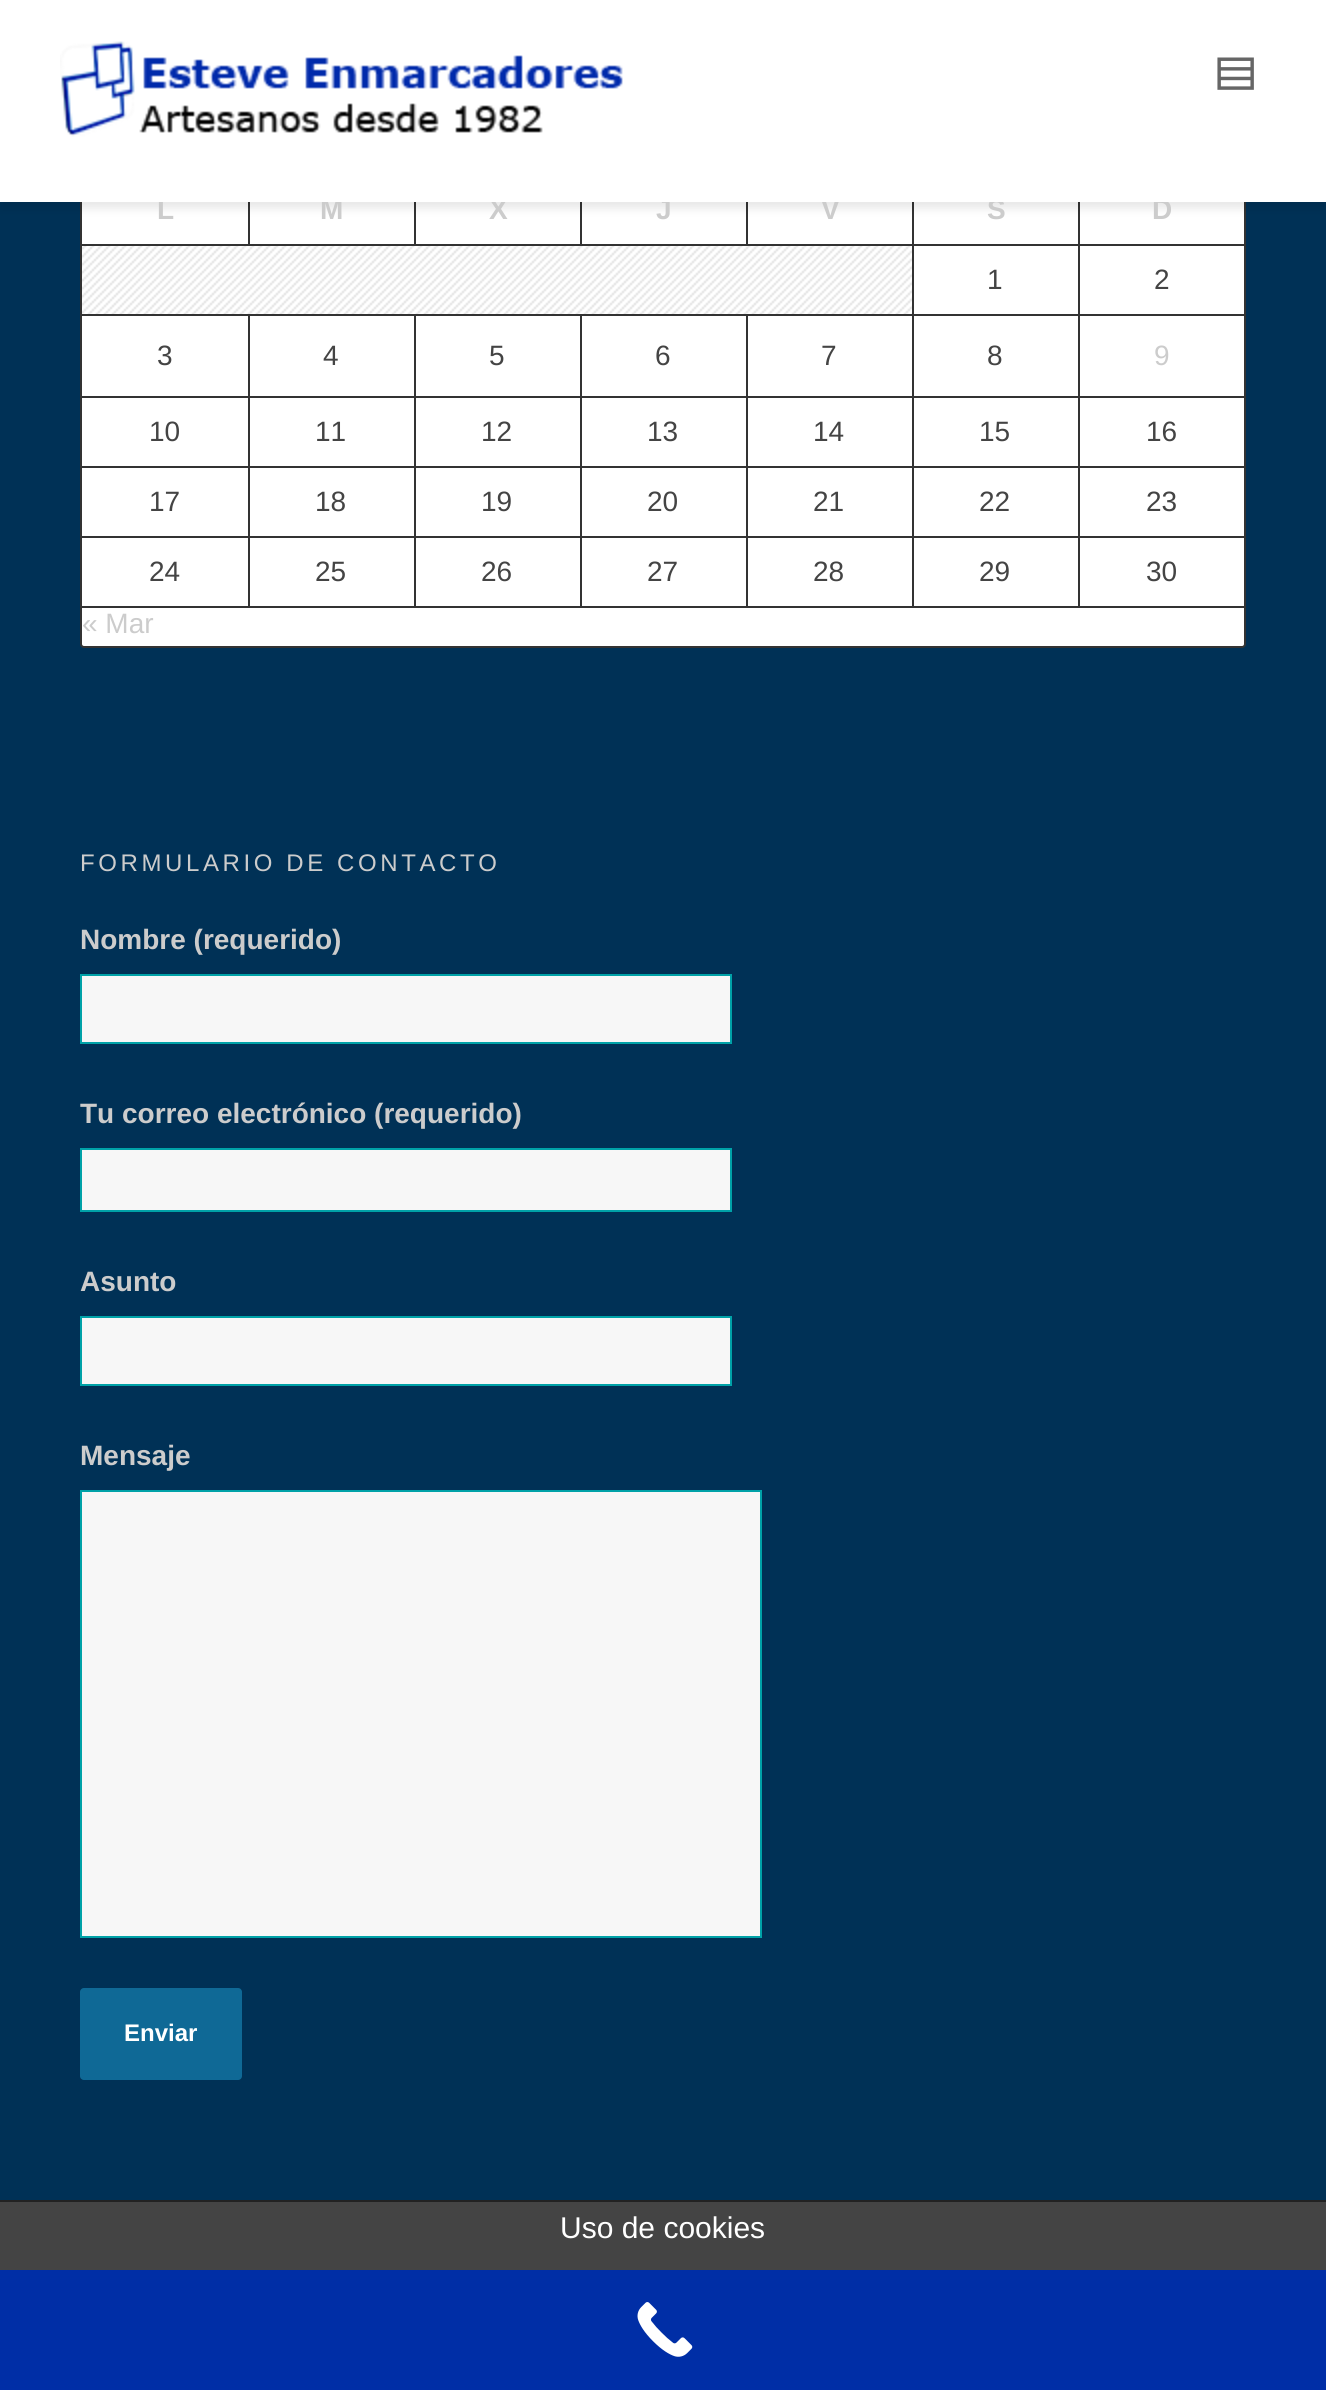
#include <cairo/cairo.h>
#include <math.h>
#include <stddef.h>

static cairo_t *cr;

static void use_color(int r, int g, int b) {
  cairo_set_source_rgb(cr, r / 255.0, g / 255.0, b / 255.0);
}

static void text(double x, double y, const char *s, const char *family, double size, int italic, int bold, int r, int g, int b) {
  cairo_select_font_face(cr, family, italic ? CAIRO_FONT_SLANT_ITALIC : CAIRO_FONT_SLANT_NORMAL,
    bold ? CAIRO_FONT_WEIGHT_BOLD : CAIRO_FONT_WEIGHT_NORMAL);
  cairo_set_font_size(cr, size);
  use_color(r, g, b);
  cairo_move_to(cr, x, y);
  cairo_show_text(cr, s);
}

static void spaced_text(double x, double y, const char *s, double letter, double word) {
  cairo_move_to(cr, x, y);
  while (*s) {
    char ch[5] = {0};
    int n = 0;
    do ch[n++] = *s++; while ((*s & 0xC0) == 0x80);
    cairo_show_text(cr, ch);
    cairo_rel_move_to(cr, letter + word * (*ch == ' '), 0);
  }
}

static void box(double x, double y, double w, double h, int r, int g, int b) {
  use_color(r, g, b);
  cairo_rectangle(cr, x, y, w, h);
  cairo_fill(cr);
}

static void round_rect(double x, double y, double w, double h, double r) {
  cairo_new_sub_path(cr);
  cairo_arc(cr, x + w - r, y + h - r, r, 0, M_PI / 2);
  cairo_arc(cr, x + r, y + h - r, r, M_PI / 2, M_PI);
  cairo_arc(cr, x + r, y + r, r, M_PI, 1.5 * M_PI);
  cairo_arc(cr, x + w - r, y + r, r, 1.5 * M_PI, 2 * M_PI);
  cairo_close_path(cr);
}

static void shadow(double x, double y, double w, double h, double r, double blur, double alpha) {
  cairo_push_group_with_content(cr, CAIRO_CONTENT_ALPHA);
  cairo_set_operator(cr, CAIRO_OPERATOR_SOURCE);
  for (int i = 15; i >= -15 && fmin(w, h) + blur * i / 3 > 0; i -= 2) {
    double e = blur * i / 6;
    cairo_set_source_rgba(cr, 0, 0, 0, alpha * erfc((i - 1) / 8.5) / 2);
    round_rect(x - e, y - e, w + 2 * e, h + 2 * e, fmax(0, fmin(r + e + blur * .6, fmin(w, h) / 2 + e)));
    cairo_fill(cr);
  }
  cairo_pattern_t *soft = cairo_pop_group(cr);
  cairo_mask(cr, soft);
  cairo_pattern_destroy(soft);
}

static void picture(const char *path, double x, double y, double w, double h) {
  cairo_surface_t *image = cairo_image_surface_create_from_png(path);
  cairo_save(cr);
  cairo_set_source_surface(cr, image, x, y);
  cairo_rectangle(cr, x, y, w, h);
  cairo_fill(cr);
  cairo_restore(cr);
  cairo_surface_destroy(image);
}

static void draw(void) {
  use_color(0, 49, 86);
  cairo_paint(cr);
  use_color(255, 255, 255);
  round_rect(81, 87, 1164, 560, 3);
  cairo_fill_preserve(cr);
  use_color(51, 51, 51);
  cairo_stroke(cr);
  box(1078, 244, 166, 2, 51, 51, 51);
  box(1078, 314, 166, 2, 51, 51, 51);
  box(1078, 396, 166, 2, 51, 51, 51);
  box(1078, 466, 166, 2, 51, 51, 51);
  box(1078, 536, 166, 2, 51, 51, 51);
  box(1078, 606, 166, 2, 51, 51, 51);
  box(1078, 536, 2, 72, 51, 51, 51);
  box(912, 536, 168, 2, 51, 51, 51);
  box(1078, 466, 2, 72, 51, 51, 51);
  box(912, 466, 168, 2, 51, 51, 51);
  box(1078, 396, 2, 72, 51, 51, 51);
  box(912, 396, 168, 2, 51, 51, 51);
  box(1078, 314, 2, 84, 51, 51, 51);
  box(912, 314, 168, 2, 51, 51, 51);
  box(1078, 244, 2, 72, 51, 51, 51);
  box(912, 244, 168, 2, 51, 51, 51);
  box(912, 606, 168, 2, 51, 51, 51);
  box(912, 536, 2, 72, 51, 51, 51);
  box(746, 536, 168, 2, 51, 51, 51);
  box(912, 466, 2, 72, 51, 51, 51);
  box(746, 466, 168, 2, 51, 51, 51);
  box(912, 396, 2, 72, 51, 51, 51);
  box(746, 396, 168, 2, 51, 51, 51);
  box(912, 314, 2, 84, 51, 51, 51);
  box(746, 314, 168, 2, 51, 51, 51);
  box(912, 244, 2, 72, 51, 51, 51);
  box(82, 244, 832, 2, 51, 51, 51);
  box(248, 202, 2, 44, 51, 51, 51);
  box(414, 202, 2, 44, 51, 51, 51);
  box(580, 202, 2, 44, 51, 51, 51);
  box(746, 202, 2, 44, 51, 51, 51);
  box(912, 202, 2, 44, 51, 51, 51);
  box(1078, 202, 2, 44, 51, 51, 51);
  use_color(0, 0, 0);
  shadow(0, 6, 1326, 202, 0, 5, 0.1);
  picture("img_03.png", 82, 246, 830, 68);
  box(746, 606, 168, 2, 51, 51, 51);
  box(746, 536, 2, 72, 51, 51, 51);
  box(580, 536, 168, 2, 51, 51, 51);
  box(746, 466, 2, 72, 51, 51, 51);
  box(580, 466, 168, 2, 51, 51, 51);
  box(746, 396, 2, 72, 51, 51, 51);
  box(580, 396, 168, 2, 51, 51, 51);
  box(746, 314, 2, 84, 51, 51, 51);
  box(580, 314, 168, 2, 51, 51, 51);
  box(580, 606, 168, 2, 51, 51, 51);
  box(580, 536, 2, 72, 51, 51, 51);
  box(414, 536, 168, 2, 51, 51, 51);
  box(580, 466, 2, 72, 51, 51, 51);
  box(414, 466, 168, 2, 51, 51, 51);
  box(580, 396, 2, 72, 51, 51, 51);
  box(414, 396, 168, 2, 51, 51, 51);
  box(580, 314, 2, 84, 51, 51, 51);
  box(414, 314, 168, 2, 51, 51, 51);
  box(414, 606, 168, 2, 51, 51, 51);
  box(414, 536, 2, 72, 51, 51, 51);
  box(248, 536, 168, 2, 51, 51, 51);
  box(414, 466, 2, 72, 51, 51, 51);
  box(248, 466, 168, 2, 51, 51, 51);
  box(414, 396, 2, 72, 51, 51, 51);
  box(248, 396, 168, 2, 51, 51, 51);
  box(414, 314, 2, 84, 51, 51, 51);
  box(248, 314, 168, 2, 51, 51, 51);
  box(248, 606, 168, 2, 51, 51, 51);
  box(248, 536, 2, 72, 51, 51, 51);
  box(82, 536, 168, 2, 51, 51, 51);
  box(248, 466, 2, 72, 51, 51, 51);
  box(82, 466, 168, 2, 51, 51, 51);
  box(248, 396, 2, 72, 51, 51, 51);
  box(82, 396, 168, 2, 51, 51, 51);
  box(248, 314, 2, 84, 51, 51, 51);
  box(82, 314, 168, 2, 51, 51, 51);
  box(82, 606, 168, 2, 51, 51, 51);
  use_color(247, 247, 247);
  cairo_rectangle(cr, 81, 975, 650, 68);
  cairo_fill_preserve(cr);
  use_color(0, 162, 168);
  cairo_stroke(cr);
  use_color(247, 247, 247);
  cairo_rectangle(cr, 81, 1149, 650, 62);
  cairo_fill_preserve(cr);
  use_color(0, 162, 168);
  cairo_stroke(cr);
  use_color(247, 247, 247);
  cairo_rectangle(cr, 81, 1317, 650, 68);
  cairo_fill_preserve(cr);
  use_color(0, 162, 168);
  cairo_stroke(cr);
  use_color(247, 247, 247);
  cairo_rectangle(cr, 81, 1491, 680, 446);
  cairo_fill_preserve(cr);
  use_color(0, 162, 168);
  cairo_stroke(cr);
  use_color(15, 105, 150);
  round_rect(80, 1988, 162, 92, 4);
  cairo_fill(cr);
  box(0, 2202, 1326, 68, 68, 68, 68);
  box(0, 2200, 1326, 2, 34, 34, 34);
  box(0, 2270, 1326, 120, 0, 46, 166);
  picture("img_04.png", 637, 2302, 56, 55);
  text(157, 219, "L", "Liberation Sans", 28, 0, 1, 204, 204, 204);
  text(320, 219, "M", "Liberation Sans", 28, 0, 1, 204, 204, 204);
  text(489, 219, "X", "Liberation Sans", 28, 0, 1, 204, 204, 204);
  text(656, 219, "J", "Liberation Sans", 28, 0, 1, 204, 204, 204);
  text(821, 219, "V", "Liberation Sans", 28, 0, 1, 204, 204, 204);
  text(987, 219, "S", "Liberation Sans", 28, 0, 1, 204, 204, 204);
  text(1152, 219, "D", "Liberation Sans", 28, 0, 1, 204, 204, 204);
  box(0, 0, 1326, 202, 255, 255, 255);
  picture("img_02.png", 1217, 57, 37, 33);
  picture("img_01.png", 60, 41, 563, 96);
  text(987, 289, "1", "Liberation Sans", 28, 0, 0, 68, 68, 68);
  text(1154, 289, "2", "Liberation Sans", 28, 0, 0, 68, 68, 68);
  text(157, 365, "3", "Liberation Sans", 28, 0, 0, 68, 68, 68);
  text(323, 365, "4", "Liberation Sans", 28, 0, 0, 68, 68, 68);
  text(489, 365, "5", "Liberation Sans", 28, 0, 0, 68, 68, 68);
  text(655, 365, "6", "Liberation Sans", 28, 0, 0, 68, 68, 68);
  text(821, 365, "7", "Liberation Sans", 28, 0, 0, 68, 68, 68);
  text(987, 365, "8", "Liberation Sans", 28, 0, 0, 68, 68, 68);
  text(1154, 365, "9", "Liberation Sans", 28, 0, 0, 204, 204, 204);
  text(149, 441, "10", "Liberation Sans", 28, 0, 0, 68, 68, 68);
  text(315, 441, "11", "Liberation Sans", 28, 0, 0, 68, 68, 68);
  text(481, 441, "12", "Liberation Sans", 28, 0, 0, 68, 68, 68);
  text(647, 441, "13", "Liberation Sans", 28, 0, 0, 68, 68, 68);
  text(813, 441, "14", "Liberation Sans", 28, 0, 0, 68, 68, 68);
  text(979, 441, "15", "Liberation Sans", 28, 0, 0, 68, 68, 68);
  text(1146, 441, "16", "Liberation Sans", 28, 0, 0, 68, 68, 68);
  text(149, 511, "17", "Liberation Sans", 28, 0, 0, 68, 68, 68);
  text(315, 511, "18", "Liberation Sans", 28, 0, 0, 68, 68, 68);
  text(481, 511, "19", "Liberation Sans", 28, 0, 0, 68, 68, 68);
  text(647, 511, "20", "Liberation Sans", 28, 0, 0, 68, 68, 68);
  text(813, 511, "21", "Liberation Sans", 28, 0, 0, 68, 68, 68);
  text(979, 511, "22", "Liberation Sans", 28, 0, 0, 68, 68, 68);
  text(1146, 511, "23", "Liberation Sans", 28, 0, 0, 68, 68, 68);
  text(149, 581, "24", "Liberation Sans", 28, 0, 0, 68, 68, 68);
  text(315, 581, "25", "Liberation Sans", 28, 0, 0, 68, 68, 68);
  text(481, 581, "26", "Liberation Sans", 28, 0, 0, 68, 68, 68);
  text(647, 581, "27", "Liberation Sans", 28, 0, 0, 68, 68, 68);
  text(813, 581, "28", "Liberation Sans", 28, 0, 0, 68, 68, 68);
  text(979, 581, "29", "Liberation Sans", 28, 0, 0, 68, 68, 68);
  text(1146, 581, "30", "Liberation Sans", 28, 0, 0, 68, 68, 68);
  text(82, 633, "« Mar", "Liberation Sans", 28, 0, 0, 204, 204, 204);
  cairo_set_font_size(cr, 24);
  spaced_text(80, 871, "FORMULARIO DE CONTACTO", 3.6, 0);
  text(80, 949, "Nombre (requerido)", "Liberation Sans", 28, 0, 1, 204, 204, 204);
  text(80, 1123, "Tu correo electrónico (requerido)", "Liberation Sans", 28, 0, 1, 204, 204, 204);
  text(80, 1291, "Asunto", "Liberation Sans", 28, 0, 1, 204, 204, 204);
  text(80, 1465, "Mensaje", "Liberation Sans", 28, 0, 1, 204, 204, 204);
  text(124, 2041, "Enviar", "Liberation Sans", 24, 0, 1, 255, 255, 255);
  text(560, 2238, "Uso de cookies", "Liberation Sans", 30, 0, 0, 255, 255, 255);
}

int main(void) {
  cairo_surface_t *surface = cairo_image_surface_create(CAIRO_FORMAT_RGB24, 1326, 2390);
  cr = cairo_create(surface);
  cairo_font_options_t *options = cairo_font_options_create();
  cairo_font_options_set_hint_metrics(options, CAIRO_HINT_METRICS_OFF);
  cairo_font_options_set_hint_style(options, CAIRO_HINT_STYLE_NONE);
  cairo_set_font_options(cr, options);
  cairo_set_miter_limit(cr, 4);
  draw();
  cairo_surface_write_to_png(surface, "out.png");
  cairo_font_options_destroy(options);
  cairo_destroy(cr);
  cairo_surface_destroy(surface);
  return 0;
}
